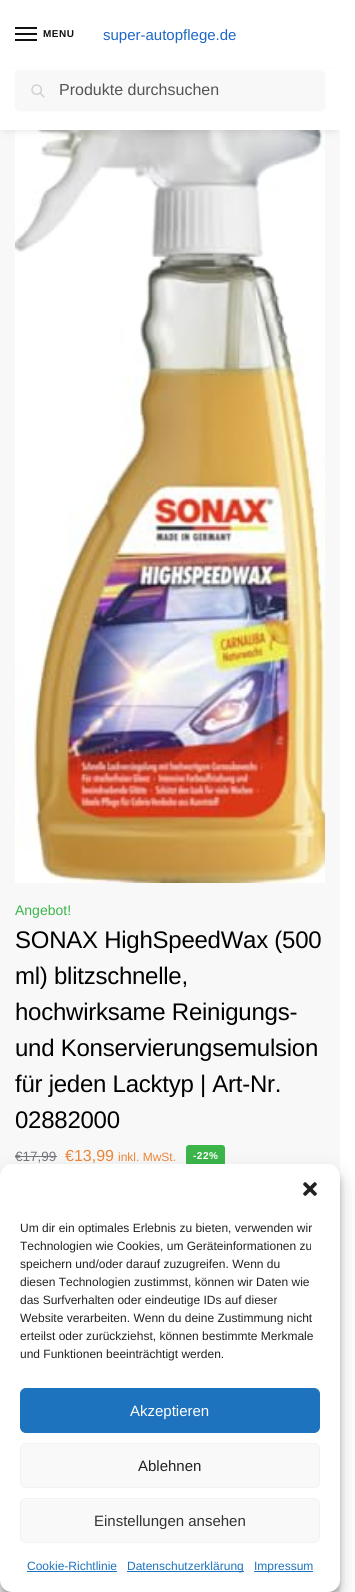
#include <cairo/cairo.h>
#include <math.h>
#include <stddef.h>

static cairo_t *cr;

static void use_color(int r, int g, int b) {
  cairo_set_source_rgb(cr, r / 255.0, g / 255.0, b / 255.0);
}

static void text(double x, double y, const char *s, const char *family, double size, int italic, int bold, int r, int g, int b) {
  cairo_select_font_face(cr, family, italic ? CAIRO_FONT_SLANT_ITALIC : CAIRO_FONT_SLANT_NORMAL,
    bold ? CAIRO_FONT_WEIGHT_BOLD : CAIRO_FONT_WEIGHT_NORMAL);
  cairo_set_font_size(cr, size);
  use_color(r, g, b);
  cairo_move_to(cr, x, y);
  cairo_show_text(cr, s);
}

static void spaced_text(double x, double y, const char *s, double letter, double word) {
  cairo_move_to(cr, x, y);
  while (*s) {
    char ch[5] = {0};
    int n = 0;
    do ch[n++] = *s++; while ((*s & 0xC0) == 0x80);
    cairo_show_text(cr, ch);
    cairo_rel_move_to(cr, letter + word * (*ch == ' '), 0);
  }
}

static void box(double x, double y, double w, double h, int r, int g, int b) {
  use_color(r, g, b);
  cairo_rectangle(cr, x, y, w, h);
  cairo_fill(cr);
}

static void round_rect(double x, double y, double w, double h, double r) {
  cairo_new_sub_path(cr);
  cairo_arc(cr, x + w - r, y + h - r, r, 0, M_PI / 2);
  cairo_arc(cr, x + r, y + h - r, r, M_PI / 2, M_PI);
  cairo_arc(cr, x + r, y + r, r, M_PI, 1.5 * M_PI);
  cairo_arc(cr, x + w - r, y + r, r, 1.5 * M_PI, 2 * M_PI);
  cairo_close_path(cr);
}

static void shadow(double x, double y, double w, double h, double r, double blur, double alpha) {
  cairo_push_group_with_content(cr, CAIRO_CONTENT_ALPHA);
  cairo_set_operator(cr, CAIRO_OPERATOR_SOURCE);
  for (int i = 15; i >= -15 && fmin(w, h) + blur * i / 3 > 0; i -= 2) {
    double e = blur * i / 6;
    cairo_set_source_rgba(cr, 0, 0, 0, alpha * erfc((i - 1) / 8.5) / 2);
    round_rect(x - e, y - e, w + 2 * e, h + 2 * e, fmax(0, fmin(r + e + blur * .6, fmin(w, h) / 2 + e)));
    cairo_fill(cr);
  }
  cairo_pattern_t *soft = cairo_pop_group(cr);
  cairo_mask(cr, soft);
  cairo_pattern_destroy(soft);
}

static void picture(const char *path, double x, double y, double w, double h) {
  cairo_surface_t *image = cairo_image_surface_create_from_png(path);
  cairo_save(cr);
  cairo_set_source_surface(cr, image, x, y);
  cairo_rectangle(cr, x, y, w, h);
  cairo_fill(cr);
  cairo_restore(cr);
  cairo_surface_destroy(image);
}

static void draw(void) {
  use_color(248, 248, 248);
  cairo_paint(cr);
  box(0, 0, 340, 70, 255, 255, 255);
  box(15, 27, 22, 2, 17, 17, 17);
  box(15, 33, 22, 2, 17, 17, 17);
  box(15, 39, 22, 2, 17, 17, 17);
  picture("img_02.png", 15, 130, 310, 753);
  use_color(0, 0, 0);
  shadow(5, 78, 330, 50, 0, 5, 0.18);
  box(0, 70, 340, 60, 255, 255, 255);
  use_color(0, 0, 0);
  shadow(15, 71, 310, 40, 5, 1, 0.05);
  use_color(248, 248, 248);
  round_rect(15, 70, 310, 40, 5);
  cairo_fill(cr);
  picture("img_01.png", 31, 84, 14, 14);
  box(340, 0, 15, 1592, 255, 255, 255);
  box(15, 1156, 42, 1, 114, 118, 124);
  use_color(59, 181, 74);
  round_rect(186, 1145, 39, 21, 3);
  cairo_fill(cr);
  use_color(0, 0, 0);
  shadow(0, 1170, 340, 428, 12, 3, 0.23);
  shadow(0, 1174, 340, 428, 12, 10, 0.19);
  use_color(255, 255, 255);
  round_rect(0, 1164, 340, 428, 12);
  cairo_fill(cr);
  picture("img_03.png", 303, 1182, 14, 14);
  use_color(30, 115, 190);
  round_rect(20.5, 1388.5, 299, 44, 5.5);
  cairo_fill_preserve(cr);
  cairo_set_line_width(cr, 1);
  cairo_stroke(cr);
  use_color(249, 249, 249);
  round_rect(20.5, 1443.5, 299, 44, 5.5);
  cairo_fill_preserve(cr);
  use_color(242, 242, 242);
  cairo_stroke(cr);
  use_color(249, 249, 249);
  round_rect(20.5, 1498.5, 299, 44, 5.5);
  cairo_fill_preserve(cr);
  use_color(242, 242, 242);
  cairo_stroke(cr);
  box(27, 1571, 90, 1, 30, 115, 190);
  box(127, 1571, 117, 1, 30, 115, 190);
  box(254, 1571, 59, 1, 30, 115, 190);
  cairo_select_font_face(cr, "Liberation Sans", CAIRO_FONT_SLANT_NORMAL, CAIRO_FONT_WEIGHT_BOLD);
  cairo_set_font_size(cr, 10);
  use_color(17, 17, 17);
  spaced_text(43, 37, "MENU", 0.5, 0);
  text(103, 40, "super-autopflege.de", "Liberation Sans", 15, 0, 0, 30, 104, 196);
  text(59, 95, "Produkte durchsuchen", "Liberation Sans", 16, 0, 0, 85, 85, 85);
  text(15, 915, "Angebot!", "Liberation Sans", 14, 0, 0, 59, 181, 74);
  cairo_set_font_size(cr, 24);
  use_color(0, 0, 0);
  spaced_text(15, 948, "SONAX HighSpeedWax (500", -0.25, 0);
  spaced_text(15, 984, "ml) blitzschnelle,", -0.25, 0);
  spaced_text(15, 1020, "hochwirksame Reinigungs-", -0.25, 0);
  spaced_text(15, 1056, "und Konservierungsemulsion", -0.25, 0);
  spaced_text(15, 1092, "für jeden Lacktyp | Art-Nr.", -0.25, 0);
  spaced_text(15, 1128, "02882000", -0.25, 0);
  text(15, 1161, "€17,99", "Liberation Sans", 13.5, 0, 0, 114, 118, 124);
  text(65, 1161, "€13,99", "Liberation Sans", 16, 0, 0, 235, 133, 55);
  text(118, 1161, "inkl. MwSt.", "Liberation Sans", 12, 0, 0, 235, 133, 55);
  cairo_select_font_face(cr, "Liberation Sans", CAIRO_FONT_SLANT_NORMAL, CAIRO_FONT_WEIGHT_BOLD);
  cairo_set_font_size(cr, 10);
  use_color(255, 255, 255);
  spaced_text(193, 1159, "-22%", 0.5, 0);
  text(20, 1232, "Um dir ein optimales Erlebnis zu bieten, verwenden wir", "Liberation Sans", 12, 0, 0, 34, 34, 34);
  text(20, 1250, "Technologien wie Cookies, um Geräteinformationen zu", "Liberation Sans", 12, 0, 0, 34, 34, 34);
  text(20, 1268, "speichern und/oder darauf zuzugreifen. Wenn du", "Liberation Sans", 12, 0, 0, 34, 34, 34);
  text(20, 1286, "diesen Technologien zustimmst, können wir Daten wie", "Liberation Sans", 12, 0, 0, 34, 34, 34);
  text(20, 1304, "das Surfverhalten oder eindeutige IDs auf dieser", "Liberation Sans", 12, 0, 0, 34, 34, 34);
  text(20, 1322, "Website verarbeiten. Wenn du deine Zustimmung nicht", "Liberation Sans", 12, 0, 0, 34, 34, 34);
  text(20, 1340, "erteilst oder zurückziehst, können bestimmte Merkmale", "Liberation Sans", 12, 0, 0, 34, 34, 34);
  text(20, 1358, "und Funktionen beeinträchtigt werden.", "Liberation Sans", 12, 0, 0, 34, 34, 34);
  text(130, 1416, "Akzeptieren", "Liberation Sans", 15, 0, 0, 255, 255, 255);
  text(138, 1471, "Ablehnen", "Liberation Sans", 15, 0, 0, 34, 34, 34);
  text(94, 1526, "Einstellungen ansehen", "Liberation Sans", 15, 0, 0, 51, 51, 51);
  text(27, 1570, "Cookie-Richtlinie", "Liberation Sans", 12, 0, 0, 30, 115, 190);
  text(127, 1570, "Datenschutzerklärung", "Liberation Sans", 12, 0, 0, 30, 115, 190);
  text(254, 1570, "Impressum", "Liberation Sans", 12, 0, 0, 30, 115, 190);
}

int main(void) {
  cairo_surface_t *surface = cairo_image_surface_create(CAIRO_FORMAT_RGB24, 355, 1592);
  cr = cairo_create(surface);
  cairo_font_options_t *options = cairo_font_options_create();
  cairo_font_options_set_hint_metrics(options, CAIRO_HINT_METRICS_OFF);
  cairo_font_options_set_hint_style(options, CAIRO_HINT_STYLE_NONE);
  cairo_set_font_options(cr, options);
  cairo_set_miter_limit(cr, 4);
  draw();
  cairo_surface_write_to_png(surface, "out.png");
  cairo_font_options_destroy(options);
  cairo_destroy(cr);
  cairo_surface_destroy(surface);
  return 0;
}
